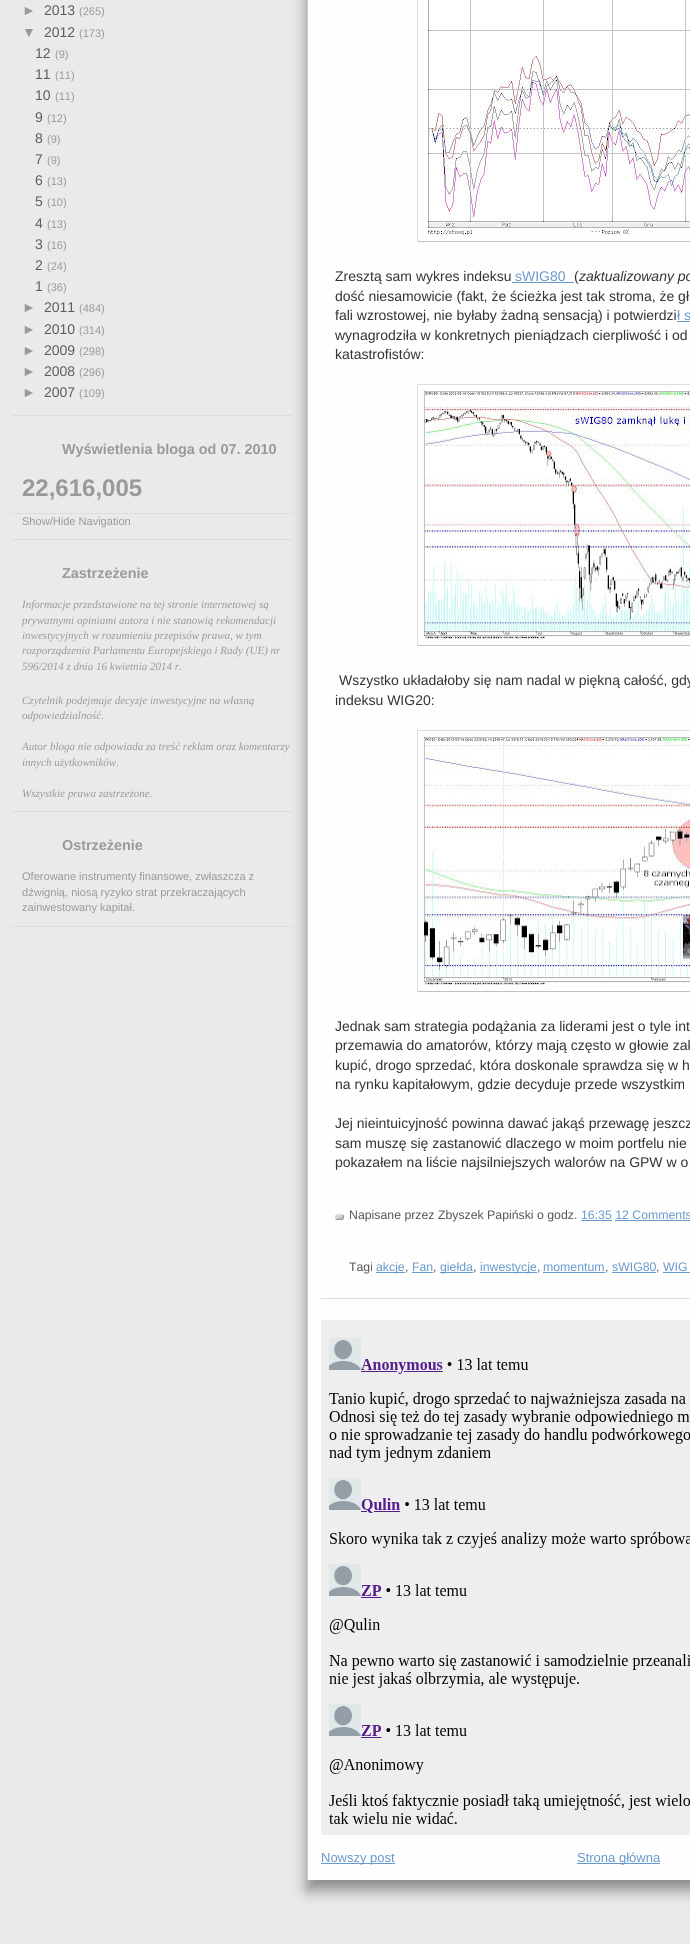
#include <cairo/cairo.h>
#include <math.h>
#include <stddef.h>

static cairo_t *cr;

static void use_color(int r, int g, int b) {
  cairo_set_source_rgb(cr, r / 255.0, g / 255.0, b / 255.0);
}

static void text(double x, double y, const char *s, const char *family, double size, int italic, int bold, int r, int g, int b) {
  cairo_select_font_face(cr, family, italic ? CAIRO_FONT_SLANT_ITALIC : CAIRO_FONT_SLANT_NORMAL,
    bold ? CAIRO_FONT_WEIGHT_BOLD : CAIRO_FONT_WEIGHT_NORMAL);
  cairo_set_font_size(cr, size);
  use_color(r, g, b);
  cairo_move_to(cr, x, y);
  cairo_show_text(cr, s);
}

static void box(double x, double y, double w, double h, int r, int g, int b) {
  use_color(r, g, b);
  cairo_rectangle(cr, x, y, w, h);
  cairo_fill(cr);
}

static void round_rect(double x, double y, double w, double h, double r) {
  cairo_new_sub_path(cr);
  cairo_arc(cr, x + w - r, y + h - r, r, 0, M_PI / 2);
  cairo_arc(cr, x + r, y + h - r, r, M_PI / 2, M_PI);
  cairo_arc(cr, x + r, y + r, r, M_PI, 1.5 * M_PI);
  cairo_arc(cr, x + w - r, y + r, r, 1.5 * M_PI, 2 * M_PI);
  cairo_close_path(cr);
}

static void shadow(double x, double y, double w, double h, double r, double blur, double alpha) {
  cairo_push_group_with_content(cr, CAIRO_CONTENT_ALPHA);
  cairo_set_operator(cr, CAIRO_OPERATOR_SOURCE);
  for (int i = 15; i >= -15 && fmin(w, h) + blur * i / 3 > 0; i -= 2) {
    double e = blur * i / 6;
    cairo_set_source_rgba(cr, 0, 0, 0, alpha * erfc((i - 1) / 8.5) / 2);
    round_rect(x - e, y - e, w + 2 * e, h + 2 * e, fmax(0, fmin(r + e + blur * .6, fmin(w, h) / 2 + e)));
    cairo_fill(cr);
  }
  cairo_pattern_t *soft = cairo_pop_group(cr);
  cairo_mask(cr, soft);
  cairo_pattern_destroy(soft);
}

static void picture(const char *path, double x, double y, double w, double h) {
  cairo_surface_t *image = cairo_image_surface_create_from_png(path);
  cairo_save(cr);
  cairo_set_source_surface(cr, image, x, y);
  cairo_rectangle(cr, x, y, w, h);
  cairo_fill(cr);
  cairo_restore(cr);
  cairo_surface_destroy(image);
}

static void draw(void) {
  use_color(234, 234, 234);
  cairo_paint(cr);
  box(12, 415, 280, 1, 221, 221, 221);
  box(12, 513, 280, 1, 221, 221, 221);
  box(12, 539, 280, 1, 221, 221, 221);
  box(12, 811, 280, 1, 221, 221, 221);
  box(12, 926, 280, 1, 221, 221, 221);
  use_color(136, 136, 136);
  shadow(307, -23, 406, 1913, 0, 7.5, 1);
  box(308, 0, 382, 1880, 254, 254, 254);
  box(307, 0, 1, 1880, 204, 204, 204);
  box(321, 1298, 369, 1, 221, 221, 221);
  box(417, 241, 273, 1, 192, 192, 192);
  box(417, 0, 1, 242, 221, 221, 221);
  picture("img_01.png", 424, 0, 266, 235);
  box(512, 282, 62, 1, 102, 153, 204);
  box(677, 321, 13, 1, 102, 153, 204);
  box(417, 384, 273, 1, 221, 221, 221);
  box(417, 645, 273, 1, 192, 192, 192);
  box(417, 384, 1, 262, 221, 221, 221);
  picture("img_02.png", 424, 391, 266, 248);
  box(417, 730, 273, 1, 221, 221, 221);
  box(417, 991, 273, 1, 192, 192, 192);
  box(417, 730, 1, 262, 221, 221, 221);
  picture("img_03.png", 424, 737, 266, 248);
  picture("img_04.png", 335, 1214, 9, 6);
  box(581, 1220, 31, 1, 102, 153, 204);
  box(615, 1220, 75, 1, 102, 153, 204);
  box(376, 1272, 29, 1, 102, 153, 204);
  box(412, 1272, 21, 1, 102, 153, 204);
  box(440, 1272, 33, 1, 102, 153, 204);
  box(480, 1272, 57, 1, 102, 153, 204);
  box(543, 1272, 62, 1, 102, 153, 204);
  box(612, 1272, 44, 1, 102, 153, 204);
  box(663, 1272, 27, 1, 102, 153, 204);
  box(321, 1320, 369, 515, 238, 238, 238);
  picture("img_05.png", 329, 1338, 361, 486);
  box(321, 1863, 74, 1, 102, 153, 204);
  box(577, 1863, 83, 1, 102, 153, 204);
  text(22, 15, "►", "Liberation Sans", 14, 0, 0, 153, 153, 153);
  text(44, 15, "2013", "Liberation Sans", 14, 0, 0, 93, 93, 93);
  text(79, 15, "(265)", "Liberation Sans", 11.05, 0, 0, 153, 153, 153);
  text(22, 37, "▼", "Liberation Sans", 14, 0, 0, 153, 153, 153);
  text(44, 37, "2012", "Liberation Sans", 14, 0, 0, 93, 93, 93);
  text(79, 37, "(173)", "Liberation Sans", 11.05, 0, 0, 153, 153, 153);
  text(35, 58, "12", "Liberation Sans", 14, 0, 0, 93, 93, 93);
  text(55, 58, "(9)", "Liberation Sans", 11.05, 0, 0, 153, 153, 153);
  text(35, 79, "11", "Liberation Sans", 14, 0, 0, 93, 93, 93);
  text(55, 79, "(11)", "Liberation Sans", 11.05, 0, 0, 153, 153, 153);
  text(35, 100, "10", "Liberation Sans", 14, 0, 0, 93, 93, 93);
  text(55, 100, "(11)", "Liberation Sans", 11.05, 0, 0, 153, 153, 153);
  text(35, 122, "9", "Liberation Sans", 14, 0, 0, 93, 93, 93);
  text(47, 122, "(12)", "Liberation Sans", 11.05, 0, 0, 153, 153, 153);
  text(35, 143, "8", "Liberation Sans", 14, 0, 0, 93, 93, 93);
  text(47, 143, "(9)", "Liberation Sans", 11.05, 0, 0, 153, 153, 153);
  text(35, 164, "7", "Liberation Sans", 14, 0, 0, 93, 93, 93);
  text(47, 164, "(9)", "Liberation Sans", 11.05, 0, 0, 153, 153, 153);
  text(35, 185, "6", "Liberation Sans", 14, 0, 0, 93, 93, 93);
  text(47, 185, "(13)", "Liberation Sans", 11.05, 0, 0, 153, 153, 153);
  text(35, 206, "5", "Liberation Sans", 14, 0, 0, 93, 93, 93);
  text(47, 206, "(10)", "Liberation Sans", 11.05, 0, 0, 153, 153, 153);
  text(35, 228, "4", "Liberation Sans", 14, 0, 0, 93, 93, 93);
  text(47, 228, "(13)", "Liberation Sans", 11.05, 0, 0, 153, 153, 153);
  text(35, 249, "3", "Liberation Sans", 14, 0, 0, 93, 93, 93);
  text(47, 249, "(16)", "Liberation Sans", 11.05, 0, 0, 153, 153, 153);
  text(35, 270, "2", "Liberation Sans", 14, 0, 0, 93, 93, 93);
  text(47, 270, "(24)", "Liberation Sans", 11.05, 0, 0, 153, 153, 153);
  text(35, 291, "1", "Liberation Sans", 14, 0, 0, 93, 93, 93);
  text(47, 291, "(36)", "Liberation Sans", 11.05, 0, 0, 153, 153, 153);
  text(22, 312, "►", "Liberation Sans", 14, 0, 0, 153, 153, 153);
  text(44, 312, "2011", "Liberation Sans", 14, 0, 0, 93, 93, 93);
  text(79, 312, "(484)", "Liberation Sans", 11.05, 0, 0, 153, 153, 153);
  text(22, 334, "►", "Liberation Sans", 14, 0, 0, 153, 153, 153);
  text(44, 334, "2010", "Liberation Sans", 14, 0, 0, 93, 93, 93);
  text(79, 334, "(314)", "Liberation Sans", 11.05, 0, 0, 153, 153, 153);
  text(22, 355, "►", "Liberation Sans", 14, 0, 0, 153, 153, 153);
  text(44, 355, "2009", "Liberation Sans", 14, 0, 0, 93, 93, 93);
  text(79, 355, "(298)", "Liberation Sans", 11.05, 0, 0, 153, 153, 153);
  text(22, 376, "►", "Liberation Sans", 14, 0, 0, 153, 153, 153);
  text(44, 376, "2008", "Liberation Sans", 14, 0, 0, 93, 93, 93);
  text(79, 376, "(296)", "Liberation Sans", 11.05, 0, 0, 153, 153, 153);
  text(22, 397, "►", "Liberation Sans", 14, 0, 0, 153, 153, 153);
  text(44, 397, "2007", "Liberation Sans", 14, 0, 0, 93, 93, 93);
  text(79, 397, "(109)", "Liberation Sans", 11.05, 0, 0, 153, 153, 153);
  text(62, 454, "Wyświetlenia bloga od 07. 2010", "Liberation Sans", 14.4, 0, 1, 153, 153, 153);
  text(22, 496, "22,616,005", "Liberation Sans", 24, 0, 1, 153, 153, 153);
  text(22, 525, "Show/Hide Navigation", "Liberation Sans", 11.05, 0, 0, 153, 153, 153);
  text(62, 578, "Zastrzeżenie", "Liberation Sans", 14.4, 0, 1, 153, 153, 153);
  text(22, 608, "Informacje przedstawione na tej stronie internetowej są", "Liberation Serif", 11.05, 1, 0, 153, 153, 153);
  text(22, 624, "prywatnymi opiniami autora i nie stanowią rekomendacji", "Liberation Serif", 11.05, 1, 0, 153, 153, 153);
  text(22, 639, "inwestycyjnych w rozumieniu przepisów prawa, w tym", "Liberation Serif", 11.05, 1, 0, 153, 153, 153);
  text(22, 654, "rozporządzenia Parlamentu Europejskiego i Rady (UE) nr", "Liberation Serif", 11.05, 1, 0, 153, 153, 153);
  text(22, 670, "596/2014 z dnia 16 kwietnia 2014 r.", "Liberation Serif", 11.05, 1, 0, 153, 153, 153);
  text(22, 704, "Czytelnik podejmuje decyzje inwestycyjne na własną", "Liberation Serif", 11.05, 1, 0, 153, 153, 153);
  text(22, 719, "odpowiedzialność.", "Liberation Serif", 11.05, 1, 0, 153, 153, 153);
  text(22, 750, "Autor bloga nie odpowiada za treść reklam oraz komentarzy", "Liberation Serif", 11.05, 1, 0, 153, 153, 153);
  text(22, 766, "innych użytkowników.", "Liberation Serif", 11.05, 1, 0, 153, 153, 153);
  text(22, 797, "Wszystkie prawa zastrzeżone.", "Liberation Serif", 11.05, 1, 0, 153, 153, 153);
  text(62, 850, "Ostrzeżenie", "Liberation Sans", 14.4, 0, 1, 153, 153, 153);
  text(22, 880, "Oferowane instrumenty finansowe, zwłaszcza z", "Liberation Sans", 11.05, 0, 0, 153, 153, 153);
  text(22, 896, "dźwignią, niosą ryzyko strat przekraczających", "Liberation Sans", 11.05, 0, 0, 153, 153, 153);
  text(22, 911, "zainwestowany kapitał.", "Liberation Sans", 11.05, 0, 0, 153, 153, 153);
  text(335, 281, "Zresztą sam wykres indeksu", "Liberation Sans", 14, 0, 0, 51, 51, 51);
  text(515, 281, "sWIG80", "Liberation Sans", 14, 0, 0, 102, 153, 204);
  text(574, 281, "(", "Liberation Sans", 14, 0, 0, 51, 51, 51);
  text(579, 281, "zaktualizowany po", "Liberation Sans", 14, 1, 0, 51, 51, 51);
  text(335, 301, "dość niesamowicie (fakt, że ścieżka jest tak stroma, że gł", "Liberation Sans", 14, 0, 0, 51, 51, 51);
  text(335, 320, "fali wzrostowej, nie byłaby żadną sensacją) i potwierdzi", "Liberation Sans", 14, 0, 0, 51, 51, 51);
  text(677, 320, "ł s", "Liberation Sans", 14, 0, 0, 102, 153, 204);
  text(335, 340, "wynagrodziła w konkretnych pieniądzach cierpliwość i od", "Liberation Sans", 14, 0, 0, 51, 51, 51);
  text(335, 359, "katastrofistów:", "Liberation Sans", 14, 0, 0, 51, 51, 51);
  text(339, 685, "Wszystko układałoby się nam nadal w piękną całość, gdy", "Liberation Sans", 14, 0, 0, 51, 51, 51);
  text(335, 705, "indeksu WIG20:", "Liberation Sans", 14, 0, 0, 51, 51, 51);
  text(335, 1031, "Jednak sam strategia podążania za liderami jest o tyle int", "Liberation Sans", 14, 0, 0, 51, 51, 51);
  text(335, 1050, "przemawia do amatorów, którzy mają często w głowie zak", "Liberation Sans", 14, 0, 0, 51, 51, 51);
  text(335, 1070, "kupić, drogo sprzedać, która doskonale sprawdza się w h", "Liberation Sans", 14, 0, 0, 51, 51, 51);
  text(335, 1089, "na rynku kapitałowym, gdzie decyduje przede wszystkim", "Liberation Sans", 14, 0, 0, 51, 51, 51);
  text(335, 1128, "Jej nieintuicyjność powinna dawać jakąś przewagę jeszcz", "Liberation Sans", 14, 0, 0, 51, 51, 51);
  text(335, 1148, "sam muszę się zastanowić dlaczego w moim portfelu nie", "Liberation Sans", 14, 0, 0, 51, 51, 51);
  text(335, 1167, "pokazałem na liście najsilniejszych walorów na GPW w o", "Liberation Sans", 14, 0, 0, 51, 51, 51);
  text(349, 1219, "Napisane przez Zbyszek Papiński o godz.", "Liberation Sans", 12.3, 0, 0, 85, 85, 85);
  text(581, 1219, "16:35 12 Comments", "Liberation Sans", 12.3, 0, 0, 102, 153, 204);
  text(349, 1271, "Tagi", "Liberation Sans", 12.3, 0, 0, 85, 85, 85);
  text(376, 1271, "akcje", "Liberation Sans", 12.3, 0, 0, 102, 153, 204);
  text(405, 1271, ",", "Liberation Sans", 12.3, 0, 0, 85, 85, 85);
  text(412, 1271, "Fan", "Liberation Sans", 12.3, 0, 0, 102, 153, 204);
  text(433, 1271, ",", "Liberation Sans", 12.3, 0, 0, 85, 85, 85);
  text(440, 1271, "giełda", "Liberation Sans", 12.3, 0, 0, 102, 153, 204);
  text(473, 1271, ",", "Liberation Sans", 12.3, 0, 0, 85, 85, 85);
  text(480, 1271, "inwestycje", "Liberation Sans", 12.3, 0, 0, 102, 153, 204);
  text(537, 1271, ",", "Liberation Sans", 12.3, 0, 0, 85, 85, 85);
  text(543, 1271, "momentum", "Liberation Sans", 12.3, 0, 0, 102, 153, 204);
  text(605, 1271, ",", "Liberation Sans", 12.3, 0, 0, 85, 85, 85);
  text(612, 1271, "sWIG80", "Liberation Sans", 12.3, 0, 0, 102, 153, 204);
  text(656, 1271, ",", "Liberation Sans", 12.3, 0, 0, 85, 85, 85);
  text(663, 1271, "WIG", "Liberation Sans", 12.3, 0, 0, 102, 153, 204);
  text(321, 1862, "Nowszy post", "Liberation Sans", 13, 0, 0, 102, 153, 204);
  text(577, 1862, "Strona główna", "Liberation Sans", 13, 0, 0, 102, 153, 204);
}

int main(void) {
  cairo_surface_t *surface = cairo_image_surface_create(CAIRO_FORMAT_RGB24, 690, 1944);
  cr = cairo_create(surface);
  cairo_font_options_t *options = cairo_font_options_create();
  cairo_font_options_set_hint_metrics(options, CAIRO_HINT_METRICS_OFF);
  cairo_font_options_set_hint_style(options, CAIRO_HINT_STYLE_NONE);
  cairo_set_font_options(cr, options);
  cairo_set_miter_limit(cr, 4);
  draw();
  cairo_surface_write_to_png(surface, "out.png");
  cairo_font_options_destroy(options);
  cairo_destroy(cr);
  cairo_surface_destroy(surface);
  return 0;
}
